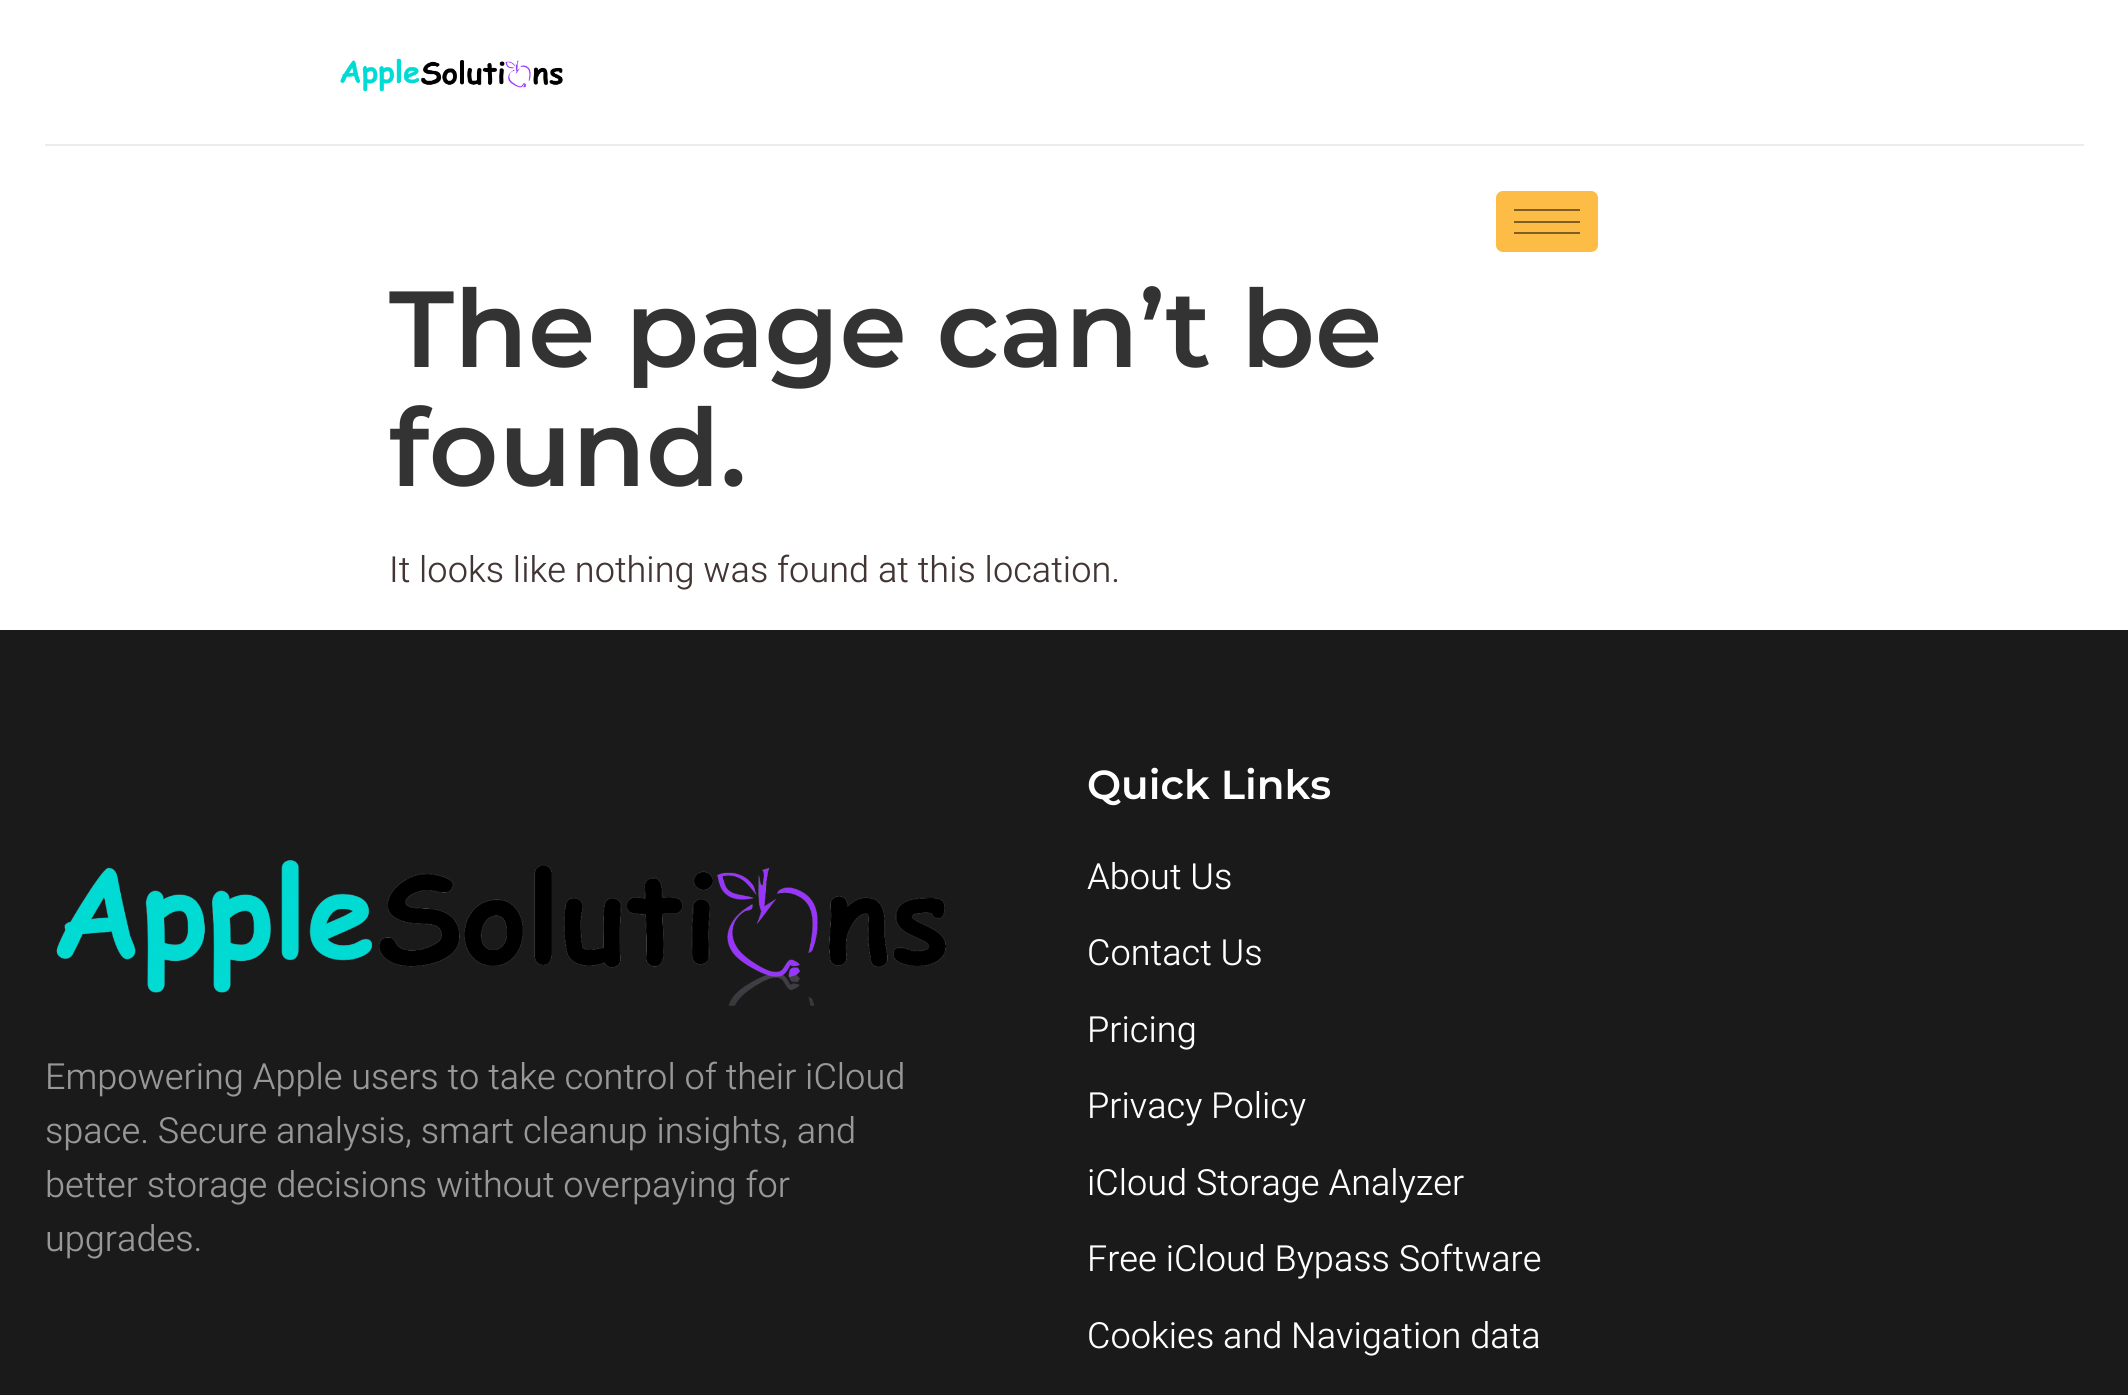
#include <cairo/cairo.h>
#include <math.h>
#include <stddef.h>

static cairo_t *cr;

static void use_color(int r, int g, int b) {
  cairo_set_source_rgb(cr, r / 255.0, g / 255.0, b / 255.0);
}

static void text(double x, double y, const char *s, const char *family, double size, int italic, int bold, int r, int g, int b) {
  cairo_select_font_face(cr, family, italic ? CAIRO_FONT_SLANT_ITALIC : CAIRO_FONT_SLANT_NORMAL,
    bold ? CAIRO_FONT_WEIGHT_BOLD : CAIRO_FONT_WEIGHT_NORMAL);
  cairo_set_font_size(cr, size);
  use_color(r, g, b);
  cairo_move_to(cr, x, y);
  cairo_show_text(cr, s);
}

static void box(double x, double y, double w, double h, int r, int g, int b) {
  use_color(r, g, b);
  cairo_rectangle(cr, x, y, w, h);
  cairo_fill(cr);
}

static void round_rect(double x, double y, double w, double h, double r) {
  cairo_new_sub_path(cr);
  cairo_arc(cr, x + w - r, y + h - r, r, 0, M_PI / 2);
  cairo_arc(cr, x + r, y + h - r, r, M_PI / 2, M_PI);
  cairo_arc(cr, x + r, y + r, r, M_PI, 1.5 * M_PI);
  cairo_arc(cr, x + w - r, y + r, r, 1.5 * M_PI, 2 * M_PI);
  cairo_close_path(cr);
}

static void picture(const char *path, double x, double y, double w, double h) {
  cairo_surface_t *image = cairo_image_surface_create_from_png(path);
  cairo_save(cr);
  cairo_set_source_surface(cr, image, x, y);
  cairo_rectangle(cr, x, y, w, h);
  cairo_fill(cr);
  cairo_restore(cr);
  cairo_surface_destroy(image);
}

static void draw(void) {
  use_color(255, 255, 255);
  cairo_paint(cr);
  box(45, 144, 2039, 2, 236, 236, 236);
  picture("img_01.png", 340, 58, 223, 36);
  use_color(252, 188, 69);
  round_rect(1496, 191, 102, 61, 7);
  cairo_fill(cr);
  box(1514, 209, 66, 2, 126, 94, 35);
  box(1514, 221, 66, 2, 126, 94, 35);
  box(1514, 232, 66, 2, 126, 94, 35);
  box(0, 630, 2128, 765, 26, 26, 26);
  picture("img_02.png", 56, 860, 890, 146);
  text(389, 367, "The page can’t be", "Montserrat SemiBold", 108, 0, 0, 51, 51, 51);
  text(389, 486, "found.", "Montserrat SemiBold", 108, 0, 0, 51, 51, 51);
  text(389, 582, "It looks like nothing was found at this location.", "Heebo Light", 36, 0, 0, 68, 53, 53);
  text(45, 1089, "Empowering Apple users to take control of their iCloud", "Heebo Light", 36, 0, 0, 152, 152, 152);
  text(45, 1143, "space. Secure analysis, smart cleanup insights, and", "Heebo Light", 36, 0, 0, 152, 152, 152);
  text(45, 1197, "better storage decisions without overpaying for", "Heebo Light", 36, 0, 0, 152, 152, 152);
  text(45, 1251, "upgrades.", "Heebo Light", 36, 0, 0, 152, 152, 152);
  text(1087, 799, "Quick Links", "Montserrat SemiBold", 40.5, 0, 0, 255, 255, 255);
  text(1087, 889, "About Us", "Heebo Light", 36, 0, 0, 255, 255, 255);
  text(1087, 965, "Contact Us", "Heebo Light", 36, 0, 0, 255, 255, 255);
  text(1087, 1042, "Pricing", "Heebo Light", 36, 0, 0, 255, 255, 255);
  text(1087, 1118, "Privacy Policy", "Heebo Light", 36, 0, 0, 255, 255, 255);
  text(1087, 1195, "iCloud Storage Analyzer", "Heebo Light", 36, 0, 0, 255, 255, 255);
  text(1087, 1271, "Free iCloud Bypass Software", "Heebo Light", 36, 0, 0, 255, 255, 255);
  text(1087, 1348, "Cookies and Navigation data", "Heebo Light", 36, 0, 0, 255, 255, 255);
}

int main(void) {
  cairo_surface_t *surface = cairo_image_surface_create(CAIRO_FORMAT_RGB24, 2128, 1395);
  cr = cairo_create(surface);
  cairo_font_options_t *options = cairo_font_options_create();
  cairo_font_options_set_hint_metrics(options, CAIRO_HINT_METRICS_OFF);
  cairo_font_options_set_hint_style(options, CAIRO_HINT_STYLE_NONE);
  cairo_set_font_options(cr, options);
  cairo_set_miter_limit(cr, 4);
  draw();
  cairo_surface_write_to_png(surface, "out.png");
  cairo_font_options_destroy(options);
  cairo_destroy(cr);
  cairo_surface_destroy(surface);
  return 0;
}
